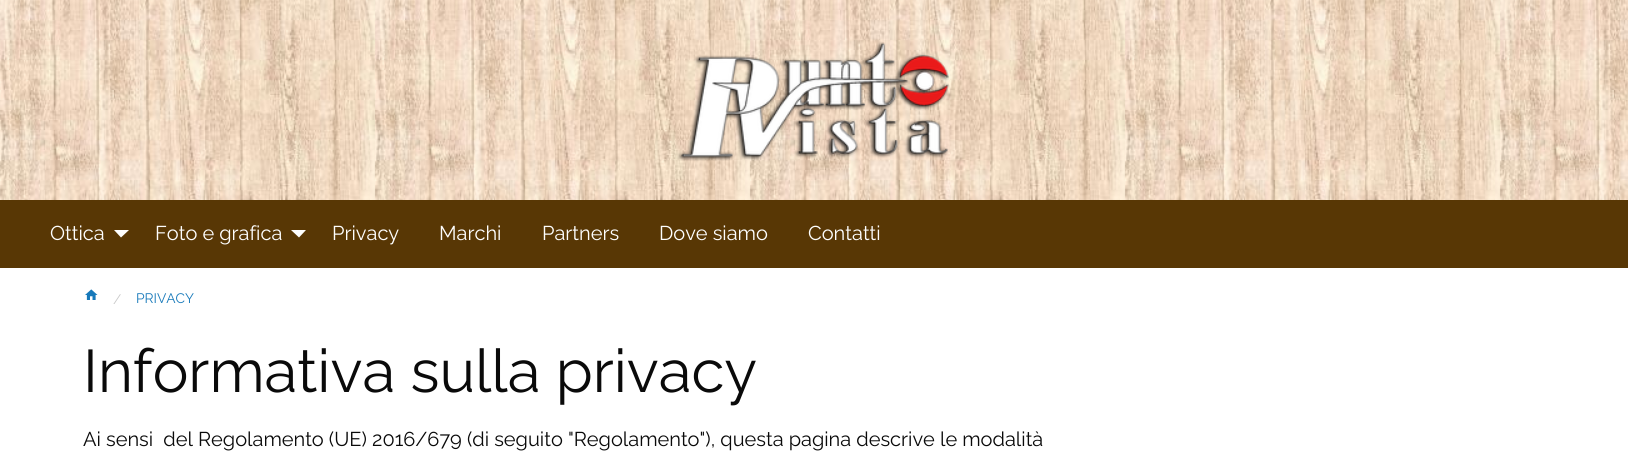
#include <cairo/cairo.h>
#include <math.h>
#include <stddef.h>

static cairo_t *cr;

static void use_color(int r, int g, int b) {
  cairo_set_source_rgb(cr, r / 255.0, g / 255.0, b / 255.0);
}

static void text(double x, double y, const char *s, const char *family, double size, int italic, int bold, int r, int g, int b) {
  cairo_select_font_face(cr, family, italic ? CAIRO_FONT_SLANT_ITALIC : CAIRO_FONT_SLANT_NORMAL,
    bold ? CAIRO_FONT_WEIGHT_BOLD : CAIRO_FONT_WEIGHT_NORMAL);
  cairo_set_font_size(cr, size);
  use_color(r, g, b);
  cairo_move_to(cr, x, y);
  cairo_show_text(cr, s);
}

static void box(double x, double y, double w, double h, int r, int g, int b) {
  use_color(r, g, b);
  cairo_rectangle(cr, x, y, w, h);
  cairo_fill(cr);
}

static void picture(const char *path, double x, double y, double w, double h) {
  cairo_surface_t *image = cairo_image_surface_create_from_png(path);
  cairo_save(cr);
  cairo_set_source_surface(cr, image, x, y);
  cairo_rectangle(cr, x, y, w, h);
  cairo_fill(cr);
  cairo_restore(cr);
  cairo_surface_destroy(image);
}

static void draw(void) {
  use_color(255, 255, 255);
  cairo_paint(cr);
  picture("img_01.png", 0, 0, 1628, 200);
  picture("img_02.png", 677, 41, 272, 120);
  box(0, 200, 1628, 68, 88, 55, 5);
  use_color(254, 254, 254);
  cairo_new_path(cr);
  cairo_move_to(cr, 114, 230);
  cairo_line_to(cr, 129, 230);
  cairo_line_to(cr, 121, 237.5);
  cairo_close_path(cr);
  cairo_fill(cr);
  cairo_new_path(cr);
  cairo_move_to(cr, 291, 230);
  cairo_line_to(cr, 306, 230);
  cairo_line_to(cr, 299, 237.5);
  cairo_close_path(cr);
  cairo_fill(cr);
  picture("img_03.png", 85, 289, 13, 11);
  text(50, 240, "Ottica", "Raleway Thin", 20, 0, 0, 254, 254, 254);
  text(155, 240, "Foto e grafica", "Raleway Thin", 20, 0, 0, 254, 254, 254);
  text(332, 240, "Privacy", "Raleway Thin", 20, 0, 0, 254, 254, 254);
  text(439, 240, "Marchi", "Raleway Thin", 20, 0, 0, 254, 254, 254);
  text(542, 240, "Partners", "Raleway Thin", 20, 0, 0, 254, 254, 254);
  text(659, 240, "Dove siamo", "Raleway Thin", 20, 0, 0, 254, 254, 254);
  text(808, 240, "Contatti", "Raleway Thin", 20, 0, 0, 254, 254, 254);
  text(113, 304, "/", "Raleway Thin", 13.75, 0, 0, 202, 202, 202);
  text(136, 303, "PRIVACY", "Raleway Thin", 13.75, 0, 0, 23, 121, 186);
  text(83, 392, "Informativa sulla privacy", "Raleway Thin", 60, 0, 0, 10, 10, 10);
  text(83, 446, "Ai sensi  del Regolamento (UE) 2016/679 (di seguito \"Regolamento\"), questa pagina descrive le modalità", "Raleway Thin", 20, 0, 0, 10, 10, 10);
}

int main(void) {
  cairo_surface_t *surface = cairo_image_surface_create(CAIRO_FORMAT_RGB24, 1628, 472);
  cr = cairo_create(surface);
  cairo_font_options_t *options = cairo_font_options_create();
  cairo_font_options_set_hint_metrics(options, CAIRO_HINT_METRICS_OFF);
  cairo_font_options_set_hint_style(options, CAIRO_HINT_STYLE_NONE);
  cairo_set_font_options(cr, options);
  cairo_set_miter_limit(cr, 4);
  draw();
  cairo_surface_write_to_png(surface, "out.png");
  cairo_font_options_destroy(options);
  cairo_destroy(cr);
  cairo_surface_destroy(surface);
  return 0;
}
